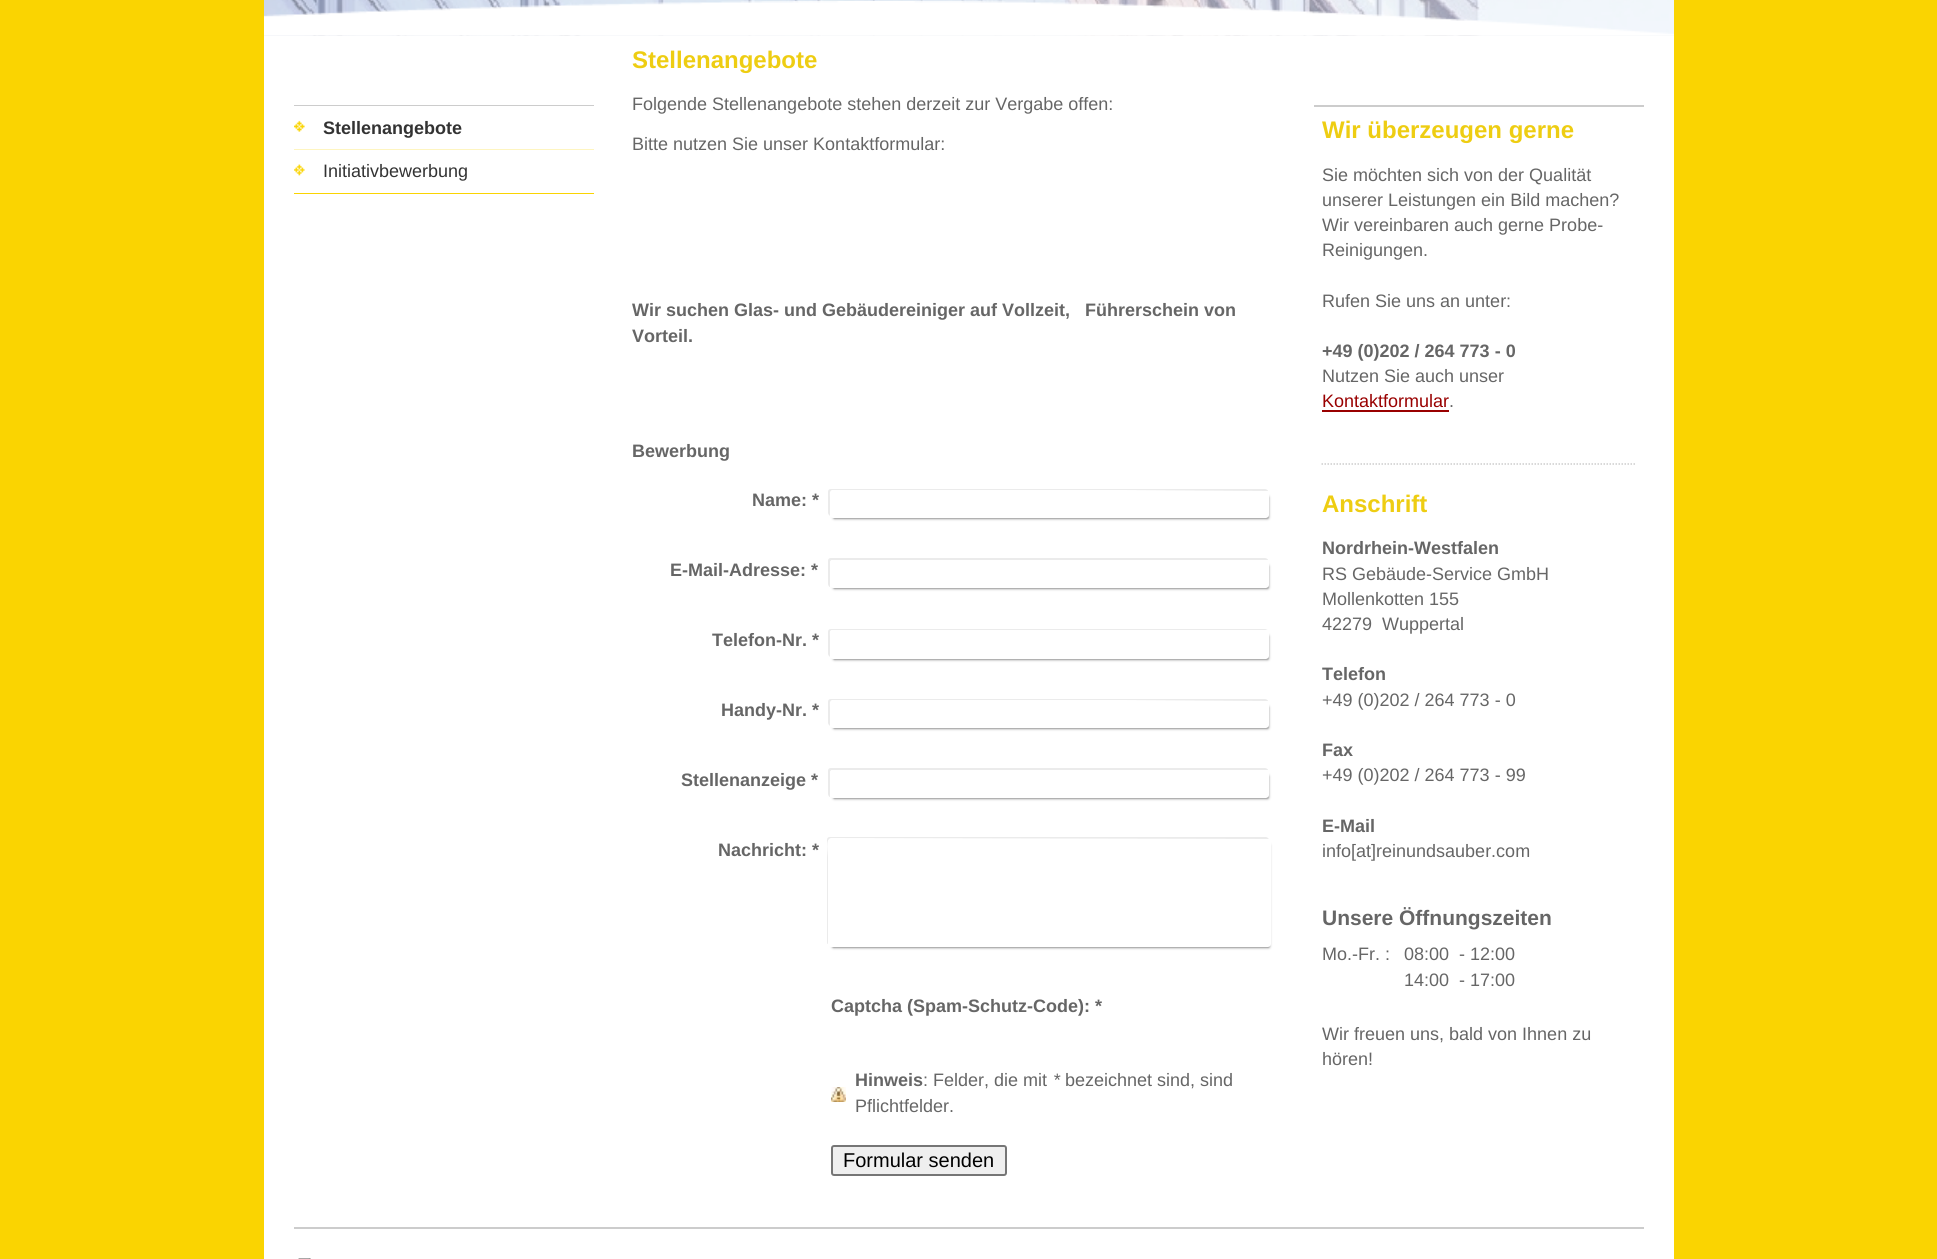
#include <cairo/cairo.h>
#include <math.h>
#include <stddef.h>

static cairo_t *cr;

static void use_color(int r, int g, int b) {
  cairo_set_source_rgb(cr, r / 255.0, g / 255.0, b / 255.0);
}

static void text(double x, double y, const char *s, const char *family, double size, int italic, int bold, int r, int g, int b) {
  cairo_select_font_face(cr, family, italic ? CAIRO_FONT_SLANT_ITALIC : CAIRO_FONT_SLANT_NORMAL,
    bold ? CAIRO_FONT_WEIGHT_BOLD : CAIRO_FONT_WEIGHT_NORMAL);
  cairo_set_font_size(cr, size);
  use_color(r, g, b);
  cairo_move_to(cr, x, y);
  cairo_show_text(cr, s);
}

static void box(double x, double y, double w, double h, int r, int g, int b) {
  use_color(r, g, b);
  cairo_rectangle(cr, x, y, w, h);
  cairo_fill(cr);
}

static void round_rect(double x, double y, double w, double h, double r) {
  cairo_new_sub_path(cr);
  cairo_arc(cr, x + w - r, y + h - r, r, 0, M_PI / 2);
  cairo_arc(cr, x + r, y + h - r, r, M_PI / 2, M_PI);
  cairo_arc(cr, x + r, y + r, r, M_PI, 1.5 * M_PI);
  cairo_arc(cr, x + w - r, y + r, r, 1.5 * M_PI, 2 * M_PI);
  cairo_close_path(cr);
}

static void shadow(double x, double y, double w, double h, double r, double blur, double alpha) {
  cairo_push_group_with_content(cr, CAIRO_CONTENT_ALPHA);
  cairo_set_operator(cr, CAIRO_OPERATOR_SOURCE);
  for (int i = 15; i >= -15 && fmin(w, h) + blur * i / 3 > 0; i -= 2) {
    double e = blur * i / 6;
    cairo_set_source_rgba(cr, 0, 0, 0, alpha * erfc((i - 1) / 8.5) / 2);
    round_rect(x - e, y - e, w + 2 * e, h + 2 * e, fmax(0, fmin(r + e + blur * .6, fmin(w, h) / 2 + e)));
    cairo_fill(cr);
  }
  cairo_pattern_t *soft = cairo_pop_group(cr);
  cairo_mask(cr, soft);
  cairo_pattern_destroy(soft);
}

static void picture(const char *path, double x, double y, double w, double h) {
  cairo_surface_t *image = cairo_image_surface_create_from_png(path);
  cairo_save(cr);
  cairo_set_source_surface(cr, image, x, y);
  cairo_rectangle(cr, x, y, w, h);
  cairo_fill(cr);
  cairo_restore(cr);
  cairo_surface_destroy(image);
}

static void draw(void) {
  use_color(250, 212, 1);
  cairo_paint(cr);
  box(264, 35, 1410, 1, 247, 247, 247);
  picture("img_01.png", 264, 0, 1410, 36);
  picture("img_02.png", 264, 1, 1410, 35);
  box(264, 36, 1410, 1223, 255, 255, 255);
  box(294, 120, 300, 74, 250, 212, 1);
  box(294, 105, 300, 1, 204, 204, 204);
  picture("img_03.png", 294, 106, 300, 44);
  picture("img_04.png", 294, 149, 300, 44);
  use_color(235, 235, 235);
  cairo_new_path(cr);
  cairo_move_to(cr, 831, 489);
  cairo_curve_to(cr, 829, 489, 828, 490, 828, 492);
  cairo_line_to(cr, 828, 513);
  cairo_curve_to(cr, 828, 514, 829, 515, 830, 516);
  cairo_line_to(cr, 830, 497);
  cairo_curve_to(cr, 830, 495, 829, 491, 832, 490);
  cairo_line_to(cr, 1122, 490);
  cairo_line_to(cr, 1267, 491);
  cairo_line_to(cr, 1268, 491);
  cairo_curve_to(cr, 1268, 490, 1266, 489, 1265, 489);
  cairo_close_path(cr);
  cairo_fill(cr);
  use_color(0, 0, 0);
  shadow(834, 497, 434, 21, 0, 1.5, 0.8);
  use_color(255, 255, 255);
  round_rect(830, 491, 439, 27, 3);
  cairo_fill(cr);
  use_color(235, 235, 235);
  cairo_new_path(cr);
  cairo_move_to(cr, 831, 558);
  cairo_curve_to(cr, 829, 558, 828, 559, 828, 561);
  cairo_line_to(cr, 828, 584);
  cairo_curve_to(cr, 828, 585, 829, 587, 830, 587);
  cairo_line_to(cr, 830, 585);
  cairo_line_to(cr, 830, 562);
  cairo_curve_to(cr, 830, 561, 831, 560, 832, 560);
  cairo_line_to(cr, 1266, 560);
  cairo_line_to(cr, 1268, 560);
  cairo_curve_to(cr, 1268, 559, 1266, 558, 1265, 558);
  cairo_close_path(cr);
  cairo_fill(cr);
  use_color(0, 0, 0);
  shadow(834, 566, 434, 22, 0, 1.5, 0.8);
  use_color(255, 255, 255);
  round_rect(830, 560, 439, 28, 3);
  cairo_fill(cr);
  use_color(235, 235, 235);
  cairo_new_path(cr);
  cairo_move_to(cr, 831, 629);
  cairo_curve_to(cr, 829, 629, 828, 630, 828, 632);
  cairo_line_to(cr, 828, 654);
  cairo_curve_to(cr, 828, 655, 829, 656, 830, 657);
  cairo_line_to(cr, 830, 637);
  cairo_curve_to(cr, 830, 634, 829, 630, 832, 630);
  cairo_line_to(cr, 1266, 630);
  cairo_line_to(cr, 1268, 630);
  cairo_curve_to(cr, 1267, 630, 1266, 629, 1265, 629);
  cairo_close_path(cr);
  cairo_fill(cr);
  use_color(0, 0, 0);
  shadow(834, 636, 434, 23, 0, 1.5, 0.8);
  use_color(255, 255, 255);
  round_rect(830, 630, 439, 29, 3);
  cairo_fill(cr);
  use_color(235, 235, 235);
  cairo_new_path(cr);
  cairo_move_to(cr, 831, 699);
  cairo_curve_to(cr, 829, 699, 828, 700, 828, 702);
  cairo_line_to(cr, 828, 723);
  cairo_curve_to(cr, 828, 724, 829, 725, 830, 726);
  cairo_line_to(cr, 830, 707);
  cairo_curve_to(cr, 830, 705, 829, 701, 832, 700);
  cairo_line_to(cr, 1122, 700);
  cairo_line_to(cr, 1267, 701);
  cairo_line_to(cr, 1268, 701);
  cairo_curve_to(cr, 1268, 700, 1266, 699, 1265, 699);
  cairo_close_path(cr);
  cairo_fill(cr);
  use_color(0, 0, 0);
  shadow(834, 707, 434, 21, 0, 1.5, 0.8);
  use_color(255, 255, 255);
  round_rect(830, 701, 439, 27, 3);
  cairo_fill(cr);
  use_color(235, 235, 235);
  cairo_new_path(cr);
  cairo_move_to(cr, 831, 768);
  cairo_curve_to(cr, 829, 768, 828, 769, 828, 771);
  cairo_line_to(cr, 828, 794);
  cairo_curve_to(cr, 828, 795, 829, 797, 830, 797);
  cairo_line_to(cr, 830, 795);
  cairo_line_to(cr, 830, 772);
  cairo_curve_to(cr, 830, 771, 831, 770, 832, 770);
  cairo_line_to(cr, 1266, 770);
  cairo_line_to(cr, 1268, 770);
  cairo_curve_to(cr, 1268, 769, 1266, 768, 1265, 768);
  cairo_close_path(cr);
  cairo_fill(cr);
  use_color(0, 0, 0);
  shadow(834, 776, 434, 22, 0, 1.5, 0.8);
  use_color(255, 255, 255);
  round_rect(830, 770, 439, 28, 3);
  cairo_fill(cr);
  use_color(235, 235, 235);
  cairo_new_path(cr);
  cairo_move_to(cr, 830, 837);
  cairo_curve_to(cr, 828, 837, 827, 838, 827, 840);
  cairo_line_to(cr, 827, 942);
  cairo_curve_to(cr, 827, 943, 827, 944, 828, 944);
  cairo_line_to(cr, 828, 858);
  cairo_curve_to(cr, 828, 852, 825, 839, 831, 838);
  cairo_line_to(cr, 1269, 839);
  cairo_curve_to(cr, 1268, 838, 1267, 837, 1266, 837);
  cairo_close_path(cr);
  cairo_fill(cr);
  use_color(0, 0, 0);
  shadow(833, 845, 436, 102, 0, 1.5, 0.8);
  use_color(255, 255, 255);
  round_rect(828, 839, 443, 108, 3);
  cairo_fill(cr);
  picture("img_05.png", 831, 1087, 15, 15);
  use_color(239, 239, 239);
  round_rect(832, 1146, 174, 29, 2);
  cairo_fill_preserve(cr);
  use_color(118, 118, 118);
  cairo_stroke(cr);
  box(1314, 105, 330, 2, 204, 204, 204);
  box(1322, 410, 127, 2, 153, 0, 0);
  cairo_new_path(cr);
  cairo_move_to(cr, 1321.5, 464);
  cairo_line_to(cr, 1636.5, 464);
  use_color(204, 204, 204);
  cairo_set_line_width(cr, 1.5);
  cairo_set_dash(cr, (double[]){1.5, 1.5}, 2, 0);
  cairo_stroke(cr);
  box(294, 1227, 1350, 2, 204, 204, 204);
  picture("img_06.png", 298, 1258, 13, 1);
  text(323, 134, "Stellenangebote", "Liberation Sans", 18, 0, 1, 51, 51, 51);
  text(323, 177, "Initiativbewerbung", "Liberation Sans", 18, 0, 0, 51, 51, 51);
  text(632, 68, "Stellenangebote", "Liberation Sans", 24, 0, 1, 238, 205, 18);
  text(632, 110, "Folgende Stellenangebote stehen derzeit zur Vergabe offen:", "Liberation Sans", 18, 0, 0, 102, 102, 102);
  text(632, 150, "Bitte nutzen Sie unser Kontaktformular:", "Liberation Sans", 18, 0, 0, 102, 102, 102);
  text(632, 316, "Wir suchen Glas- und Gebäudereiniger auf Vollzeit,   Führerschein von", "Liberation Sans", 18, 0, 1, 102, 102, 102);
  text(632, 342, "Vorteil.", "Liberation Sans", 18, 0, 1, 102, 102, 102);
  text(632, 457, "Bewerbung", "Liberation Sans", 18, 0, 1, 102, 102, 102);
  text(752, 506, "Name: *", "Liberation Sans", 18, 0, 1, 102, 102, 102);
  text(670, 576, "E-Mail-Adresse: *", "Liberation Sans", 18, 0, 1, 102, 102, 102);
  text(712, 646, "Telefon-Nr. *", "Liberation Sans", 18, 0, 1, 102, 102, 102);
  text(721, 716, "Handy-Nr. *", "Liberation Sans", 18, 0, 1, 102, 102, 102);
  text(681, 786, "Stellenanzeige *", "Liberation Sans", 18, 0, 1, 102, 102, 102);
  text(718, 856, "Nachricht: *", "Liberation Sans", 18, 0, 1, 102, 102, 102);
  text(831, 1012, "Captcha (Spam-Schutz-Code): *", "Liberation Sans", 18, 0, 1, 102, 102, 102);
  text(855, 1086, "Hinweis", "Liberation Sans", 18, 0, 1, 102, 102, 102);
  text(923, 1086, ": Felder, die mit", "Liberation Sans", 18, 0, 0, 102, 102, 102);
  text(1053, 1086, "*", "Liberation Sans", 18, 1, 0, 102, 102, 102);
  text(1065, 1086, "bezeichnet sind, sind", "Liberation Sans", 18, 0, 0, 102, 102, 102);
  text(855, 1112, "Pflichtfelder.", "Liberation Sans", 18, 0, 0, 102, 102, 102);
  text(843, 1167, "Formular senden", "Liberation Sans", 20, 0, 0, 0, 0, 0);
  text(1322, 138, "Wir überzeugen gerne", "Liberation Sans", 24, 0, 1, 238, 205, 18);
  text(1322, 181, "Sie möchten sich von der Qualität", "Liberation Sans", 18, 0, 0, 102, 102, 102);
  text(1322, 206, "unserer Leistungen ein Bild machen?", "Liberation Sans", 18, 0, 0, 102, 102, 102);
  text(1322, 231, "Wir vereinbaren auch gerne Probe-", "Liberation Sans", 18, 0, 0, 102, 102, 102);
  text(1322, 256, "Reinigungen.", "Liberation Sans", 18, 0, 0, 102, 102, 102);
  text(1322, 307, "Rufen Sie uns an unter:", "Liberation Sans", 18, 0, 0, 102, 102, 102);
  text(1322, 357, "+49 (0)202 / 264 773 - 0", "Liberation Sans", 18, 0, 1, 102, 102, 102);
  text(1322, 382, "Nutzen Sie auch unser", "Liberation Sans", 18, 0, 0, 102, 102, 102);
  text(1322, 407, "Kontaktformular", "Liberation Sans", 18, 0, 0, 153, 0, 0);
  text(1449, 407, ".", "Liberation Sans", 18, 0, 0, 102, 102, 102);
  text(1322, 512, "Anschrift", "Liberation Sans", 24, 0, 1, 238, 205, 18);
  text(1322, 554, "Nordrhein-Westfalen", "Liberation Sans", 18, 0, 1, 102, 102, 102);
  text(1322, 580, "RS Gebäude-Service GmbH", "Liberation Sans", 18, 0, 0, 102, 102, 102);
  text(1322, 605, "Mollenkotten 155", "Liberation Sans", 18, 0, 0, 102, 102, 102);
  text(1322, 630, "42279  Wuppertal", "Liberation Sans", 18, 0, 0, 102, 102, 102);
  text(1322, 680, "Telefon", "Liberation Sans", 18, 0, 1, 102, 102, 102);
  text(1322, 706, "+49 (0)202 / 264 773 - 0", "Liberation Sans", 18, 0, 0, 102, 102, 102);
  text(1322, 756, "Fax", "Liberation Sans", 18, 0, 1, 102, 102, 102);
  text(1322, 781, "+49 (0)202 / 264 773 - 99", "Liberation Sans", 18, 0, 0, 102, 102, 102);
  text(1322, 832, "E-Mail", "Liberation Sans", 18, 0, 1, 102, 102, 102);
  text(1322, 857, "info[at]reinundsauber.com", "Liberation Sans", 18, 0, 0, 102, 102, 102);
  text(1322, 925, "Unsere Öffnungszeiten", "Liberation Sans", 21, 0, 1, 102, 102, 102);
  text(1322, 960, "Mo.-Fr. :", "Liberation Sans", 18, 0, 0, 102, 102, 102);
  text(1404, 960, "08:00  - 12:00", "Liberation Sans", 18, 0, 0, 102, 102, 102);
  text(1404, 986, "14:00  - 17:00", "Liberation Sans", 18, 0, 0, 102, 102, 102);
  text(1322, 1040, "Wir freuen uns, bald von Ihnen zu", "Liberation Sans", 18, 0, 0, 102, 102, 102);
  text(1322, 1065, "hören!", "Liberation Sans", 18, 0, 0, 102, 102, 102);
}

int main(void) {
  cairo_surface_t *surface = cairo_image_surface_create(CAIRO_FORMAT_RGB24, 1937, 1259);
  cr = cairo_create(surface);
  cairo_font_options_t *options = cairo_font_options_create();
  cairo_font_options_set_hint_metrics(options, CAIRO_HINT_METRICS_OFF);
  cairo_font_options_set_hint_style(options, CAIRO_HINT_STYLE_NONE);
  cairo_set_font_options(cr, options);
  cairo_set_miter_limit(cr, 4);
  draw();
  cairo_surface_write_to_png(surface, "out.png");
  cairo_font_options_destroy(options);
  cairo_destroy(cr);
  cairo_surface_destroy(surface);
  return 0;
}
